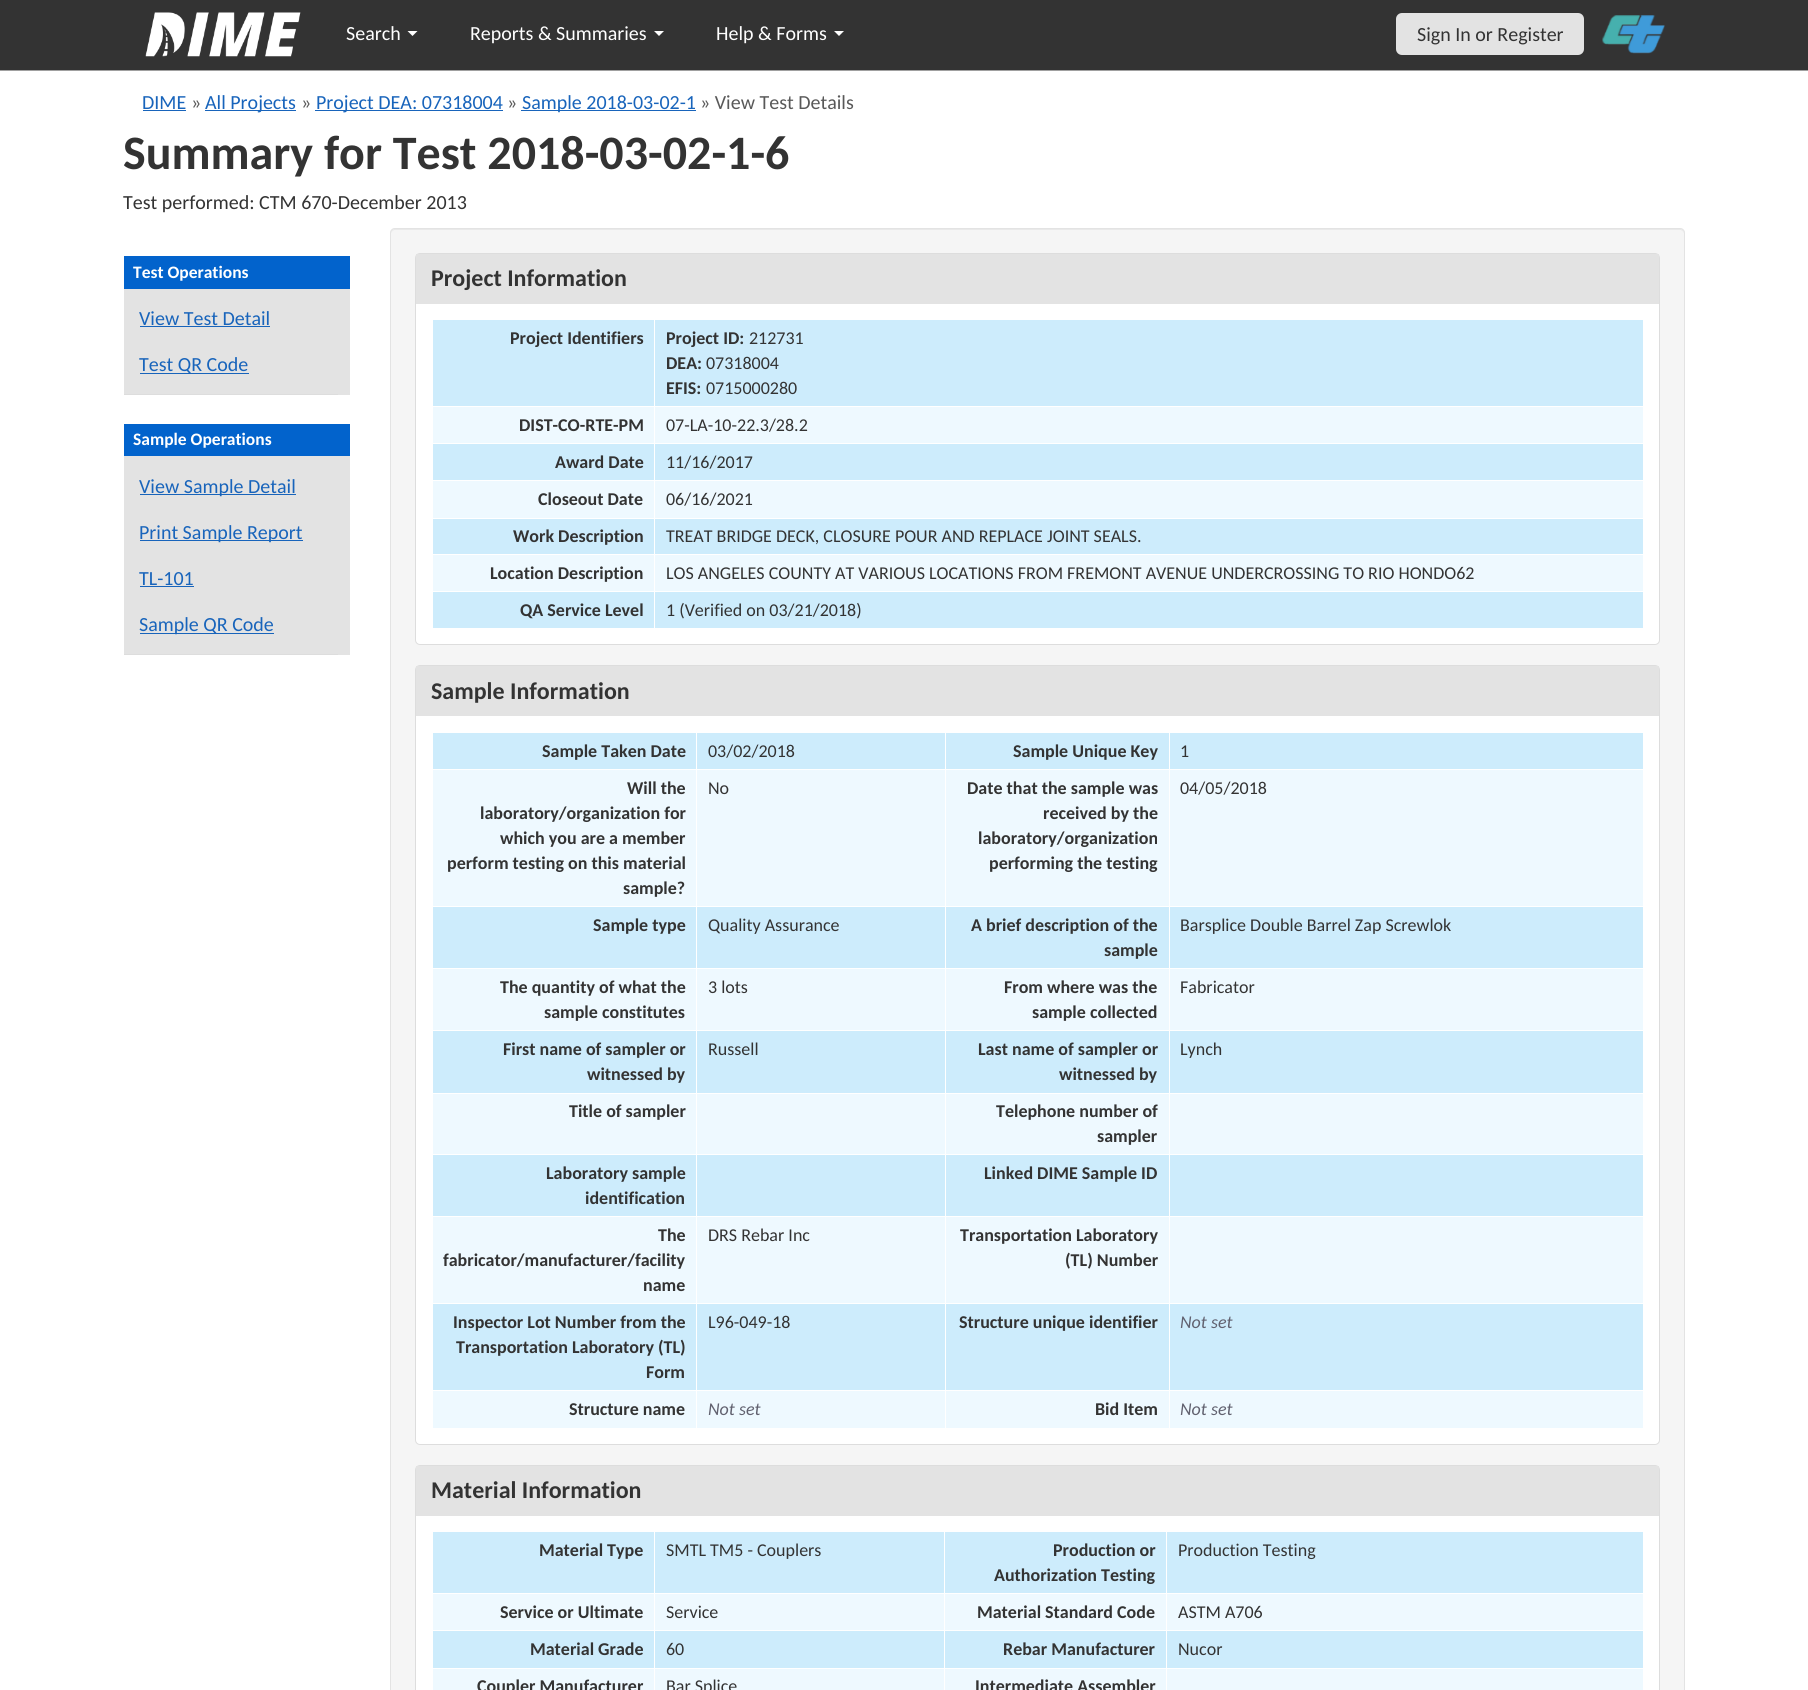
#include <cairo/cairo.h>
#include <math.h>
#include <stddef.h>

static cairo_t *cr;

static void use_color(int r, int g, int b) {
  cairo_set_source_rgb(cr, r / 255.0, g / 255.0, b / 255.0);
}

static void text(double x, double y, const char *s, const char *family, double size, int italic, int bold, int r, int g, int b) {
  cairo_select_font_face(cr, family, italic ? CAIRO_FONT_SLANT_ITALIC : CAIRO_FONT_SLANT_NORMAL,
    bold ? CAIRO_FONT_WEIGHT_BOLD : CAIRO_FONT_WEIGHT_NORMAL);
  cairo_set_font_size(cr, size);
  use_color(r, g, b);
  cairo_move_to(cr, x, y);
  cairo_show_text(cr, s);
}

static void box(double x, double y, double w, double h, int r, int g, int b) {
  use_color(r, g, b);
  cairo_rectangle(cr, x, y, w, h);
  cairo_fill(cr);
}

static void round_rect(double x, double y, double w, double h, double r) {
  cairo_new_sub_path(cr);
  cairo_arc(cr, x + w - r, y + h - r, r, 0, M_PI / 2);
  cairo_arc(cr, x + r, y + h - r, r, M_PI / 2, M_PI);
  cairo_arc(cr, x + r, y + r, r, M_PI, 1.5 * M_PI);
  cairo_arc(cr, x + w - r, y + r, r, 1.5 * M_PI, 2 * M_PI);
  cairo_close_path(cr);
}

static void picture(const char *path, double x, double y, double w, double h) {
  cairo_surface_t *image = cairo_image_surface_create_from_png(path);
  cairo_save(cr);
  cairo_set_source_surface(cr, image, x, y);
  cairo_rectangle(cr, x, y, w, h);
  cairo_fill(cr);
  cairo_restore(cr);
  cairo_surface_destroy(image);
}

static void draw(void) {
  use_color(255, 255, 255);
  cairo_paint(cr);
  box(0, 0, 1808, 70, 51, 51, 51);
  box(0, 70, 1808, 1, 160, 160, 160);
  picture("img_01.png", 145, 12, 156, 45);
  use_color(255, 255, 255);
  cairo_new_path(cr);
  cairo_move_to(cr, 407.5, 31);
  cairo_line_to(cr, 417.5, 31);
  cairo_line_to(cr, 412.5, 36);
  cairo_close_path(cr);
  cairo_fill(cr);
  cairo_new_path(cr);
  cairo_move_to(cr, 654, 31);
  cairo_line_to(cr, 664, 31);
  cairo_line_to(cr, 659, 36);
  cairo_close_path(cr);
  cairo_fill(cr);
  cairo_new_path(cr);
  cairo_move_to(cr, 834, 31);
  cairo_line_to(cr, 844, 31);
  cairo_line_to(cr, 839, 36);
  cairo_close_path(cr);
  cairo_fill(cr);
  use_color(227, 227, 227);
  round_rect(1396, 13, 188, 42, 6);
  cairo_fill(cr);
  picture("img_02.png", 1602, 15, 63, 39);
  box(143, 110, 43, 1, 24, 100, 187);
  box(205, 110, 91, 1, 24, 100, 187);
  box(315, 110, 188, 1, 24, 100, 187);
  box(521, 110, 175, 1, 24, 100, 187);
  box(124, 256, 226, 33, 2, 99, 204);
  box(124, 289, 226, 106, 227, 227, 227);
  box(124, 394, 214, 1, 221, 221, 221);
  box(140, 326, 130, 1, 24, 100, 187);
  box(140, 373, 109, 1, 24, 100, 187);
  box(124, 424, 226, 32, 2, 99, 204);
  box(124, 456, 226, 199, 227, 227, 227);
  box(124, 654, 214, 1, 221, 221, 221);
  box(140, 494, 156, 1, 24, 100, 187);
  box(140, 540, 163, 1, 24, 100, 187);
  box(140, 586, 54, 1, 24, 100, 187);
  box(140, 633, 134, 1, 24, 100, 187);
  use_color(245, 245, 245);
  round_rect(390, 228, 1295, 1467, 5);
  cairo_fill(cr);
  use_color(233, 233, 233);
  cairo_new_path(cr);
  cairo_move_to(cr, 395, 230);
  cairo_line_to(cr, 1680, 230);
  cairo_curve_to(cr, 1682, 230, 1684, 232, 1684, 234);
  cairo_line_to(cr, 1684, 233);
  cairo_curve_to(cr, 1684, 231, 1682, 229, 1680, 229);
  cairo_line_to(cr, 395, 229);
  cairo_curve_to(cr, 393, 229, 391, 231, 391, 233);
  cairo_line_to(cr, 391, 234);
  cairo_curve_to(cr, 391, 232, 393, 230, 395, 230);
  cairo_close_path(cr);
  cairo_fill(cr);
  round_rect(390.5, 228.5, 1294, 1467, 4.5);
  use_color(227, 227, 227);
  cairo_set_line_width(cr, 1);
  cairo_stroke(cr);
  use_color(255, 255, 255);
  round_rect(415.5, 253.5, 1244, 391, 4.5);
  cairo_fill_preserve(cr);
  use_color(221, 221, 221);
  cairo_stroke(cr);
  box(416, 254, 1243, 50, 227, 227, 227);
  box(433, 320, 1210, 86, 205, 236, 252);
  box(433, 407, 1210, 36, 238, 249, 255);
  box(433, 444, 1210, 36, 205, 236, 252);
  box(433, 481, 1210, 37, 238, 249, 255);
  box(433, 519, 1210, 35, 205, 236, 252);
  box(433, 555, 1210, 36, 238, 249, 255);
  box(433, 592, 1210, 36, 205, 236, 252);
  box(654, 319, 1, 310, 255, 255, 255);
  round_rect(415.5, 665.5, 1244, 779, 4.5);
  cairo_fill_preserve(cr);
  use_color(221, 221, 221);
  cairo_stroke(cr);
  box(416, 666, 1243, 50, 227, 227, 227);
  box(433, 733, 1210, 36, 205, 236, 252);
  box(433, 770, 1210, 136, 238, 249, 255);
  box(433, 907, 1210, 61, 205, 236, 252);
  box(433, 969, 1210, 61, 238, 249, 255);
  box(433, 1031, 1210, 62, 205, 236, 252);
  box(433, 1094, 1210, 60, 238, 249, 255);
  box(433, 1155, 1210, 61, 205, 236, 252);
  box(433, 1217, 1210, 86, 238, 249, 255);
  box(433, 1304, 1210, 86, 205, 236, 252);
  box(433, 1391, 1210, 37, 238, 249, 255);
  box(696, 731, 1, 698, 255, 255, 255);
  box(945, 731, 1, 698, 255, 255, 255);
  box(1169, 731, 1, 698, 255, 255, 255);
  round_rect(415.5, 1465.5, 1244, 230, 4.5);
  cairo_fill_preserve(cr);
  use_color(221, 221, 221);
  cairo_stroke(cr);
  box(416, 1466, 1243, 50, 227, 227, 227);
  box(433, 1532, 1210, 61, 205, 236, 252);
  box(433, 1594, 1210, 36, 238, 249, 255);
  box(433, 1631, 1210, 37, 205, 236, 252);
  box(433, 1669, 1210, 21, 238, 249, 255);
  box(654, 1531, 1, 159, 255, 255, 255);
  box(944, 1531, 1, 159, 255, 255, 255);
  box(1166, 1531, 1, 159, 255, 255, 255);
  text(346, 40, "Search", "Carlito", 20, 0, 0, 255, 255, 255);
  text(470, 40, "Reports & Summaries", "Carlito", 20, 0, 0, 255, 255, 255);
  text(716, 40, "Help & Forms", "Carlito", 20, 0, 0, 255, 255, 255);
  text(1417, 41, "Sign In or Register", "Carlito", 20, 0, 0, 51, 51, 51);
  text(142, 109, "DIME", "Carlito", 20, 0, 0, 24, 100, 187);
  text(191, 109, "»", "Carlito", 20, 0, 0, 89, 89, 89);
  text(205, 109, "All Projects", "Carlito", 20, 0, 0, 24, 100, 187);
  text(301, 109, "»", "Carlito", 20, 0, 0, 89, 89, 89);
  text(316, 109, "Project DEA: 07318004", "Carlito", 20, 0, 0, 24, 100, 187);
  text(507, 109, "»", "Carlito", 20, 0, 0, 89, 89, 89);
  text(522, 109, "Sample 2018-03-02-1", "Carlito", 20, 0, 0, 24, 100, 187);
  text(700, 109, "» View Test Details", "Carlito", 20, 0, 0, 89, 89, 89);
  text(123, 169, "Summary for Test 2018-03-02-1-6", "Carlito", 48, 0, 1, 51, 51, 51);
  text(123, 209, "Test performed: CTM 670-December 2013", "Carlito", 20, 0, 0, 51, 51, 51);
  text(133, 278, "Test Operations", "Carlito", 17.5, 0, 1, 255, 255, 255);
  text(139, 325, "View Test Detail", "Carlito", 20, 0, 0, 24, 100, 187);
  text(139, 371, "Test QR Code", "Carlito", 20, 0, 0, 24, 100, 187);
  text(133, 445, "Sample Operations", "Carlito", 17.5, 0, 1, 255, 255, 255);
  text(139, 493, "View Sample Detail", "Carlito", 20, 0, 0, 24, 100, 187);
  text(139, 539, "Print Sample Report", "Carlito", 20, 0, 0, 24, 100, 187);
  text(139, 585, "TL-101", "Carlito", 20, 0, 0, 24, 100, 187);
  text(139, 631, "Sample QR Code", "Carlito", 20, 0, 0, 24, 100, 187);
  text(431, 286, "Project Information", "Carlito", 24, 0, 1, 51, 51, 51);
  text(510, 344, "Project Identifiers", "Carlito", 18, 0, 1, 51, 51, 51);
  text(666, 344, "Project ID:", "Carlito", 18, 0, 1, 51, 51, 51);
  text(749, 344, "212731", "Carlito", 18, 0, 0, 51, 51, 51);
  text(666, 369, "DEA:", "Carlito", 18, 0, 1, 51, 51, 51);
  text(706, 369, "07318004", "Carlito", 18, 0, 0, 51, 51, 51);
  text(666, 394, "EFIS:", "Carlito", 18, 0, 1, 51, 51, 51);
  text(706, 394, "0715000280", "Carlito", 18, 0, 0, 51, 51, 51);
  text(519, 431, "DIST-CO-RTE-PM", "Carlito", 18, 0, 1, 51, 51, 51);
  text(666, 431, "07-LA-10-22.3/28.2", "Carlito", 18, 0, 0, 51, 51, 51);
  text(555, 468, "Award Date", "Carlito", 18, 0, 1, 51, 51, 51);
  text(666, 468, "11/16/2017", "Carlito", 18, 0, 0, 51, 51, 51);
  text(538, 505, "Closeout Date", "Carlito", 18, 0, 1, 51, 51, 51);
  text(666, 505, "06/16/2021", "Carlito", 18, 0, 0, 51, 51, 51);
  text(513, 542, "Work Description", "Carlito", 18, 0, 1, 51, 51, 51);
  text(666, 542, "TREAT BRIDGE DECK, CLOSURE POUR AND REPLACE JOINT SEALS.", "Carlito", 18, 0, 0, 51, 51, 51);
  text(490, 579, "Location Description", "Carlito", 18, 0, 1, 51, 51, 51);
  text(666, 579, "LOS ANGELES COUNTY AT VARIOUS LOCATIONS FROM FREMONT AVENUE UNDERCROSSING TO RIO HONDO62", "Carlito", 18, 0, 0, 51, 51, 51);
  text(520, 616, "QA Service Level", "Carlito", 18, 0, 1, 51, 51, 51);
  text(666, 616, "1 (Verified on 03/21/2018)", "Carlito", 18, 0, 0, 51, 51, 51);
  text(431, 699, "Sample Information", "Carlito", 24, 0, 1, 51, 51, 51);
  text(542, 757, "Sample Taken Date", "Carlito", 18, 0, 1, 51, 51, 51);
  text(708, 757, "03/02/2018", "Carlito", 18, 0, 0, 51, 51, 51);
  text(1013, 757, "Sample Unique Key", "Carlito", 18, 0, 1, 51, 51, 51);
  text(1180, 757, "1", "Carlito", 18, 0, 0, 51, 51, 51);
  text(627, 794, "Will the", "Carlito", 18, 0, 1, 51, 51, 51);
  text(480, 819, "laboratory/organization for", "Carlito", 18, 0, 1, 51, 51, 51);
  text(500, 844, "which you are a member", "Carlito", 18, 0, 1, 51, 51, 51);
  text(447, 869, "perform testing on this material", "Carlito", 18, 0, 1, 51, 51, 51);
  text(623, 894, "sample?", "Carlito", 18, 0, 1, 51, 51, 51);
  text(708, 794, "No", "Carlito", 18, 0, 0, 51, 51, 51);
  text(967, 794, "Date that the sample was", "Carlito", 18, 0, 1, 51, 51, 51);
  text(1043, 819, "received by the", "Carlito", 18, 0, 1, 51, 51, 51);
  text(978, 844, "laboratory/organization", "Carlito", 18, 0, 1, 51, 51, 51);
  text(989, 869, "performing the testing", "Carlito", 18, 0, 1, 51, 51, 51);
  text(1180, 794, "04/05/2018", "Carlito", 18, 0, 0, 51, 51, 51);
  text(593, 931, "Sample type", "Carlito", 18, 0, 1, 51, 51, 51);
  text(708, 931, "Quality Assurance", "Carlito", 18, 0, 0, 51, 51, 51);
  text(971, 931, "A brief description of the", "Carlito", 18, 0, 1, 51, 51, 51);
  text(1104, 956, "sample", "Carlito", 18, 0, 1, 51, 51, 51);
  text(1180, 931, "Barsplice Double Barrel Zap Screwlok", "Carlito", 18, 0, 0, 51, 51, 51);
  text(500, 993, "The quantity of what the", "Carlito", 18, 0, 1, 51, 51, 51);
  text(544, 1018, "sample constitutes", "Carlito", 18, 0, 1, 51, 51, 51);
  text(708, 993, "3 lots", "Carlito", 18, 0, 0, 51, 51, 51);
  text(1004, 993, "From where was the", "Carlito", 18, 0, 1, 51, 51, 51);
  text(1032, 1018, "sample collected", "Carlito", 18, 0, 1, 51, 51, 51);
  text(1180, 993, "Fabricator", "Carlito", 18, 0, 0, 51, 51, 51);
  text(503, 1055, "First name of sampler or", "Carlito", 18, 0, 1, 51, 51, 51);
  text(587, 1080, "witnessed by", "Carlito", 18, 0, 1, 51, 51, 51);
  text(708, 1055, "Russell", "Carlito", 18, 0, 0, 51, 51, 51);
  text(978, 1055, "Last name of sampler or", "Carlito", 18, 0, 1, 51, 51, 51);
  text(1059, 1080, "witnessed by", "Carlito", 18, 0, 1, 51, 51, 51);
  text(1180, 1055, "Lynch", "Carlito", 18, 0, 0, 51, 51, 51);
  text(569, 1117, "Title of sampler", "Carlito", 18, 0, 1, 51, 51, 51);
  text(996, 1117, "Telephone number of", "Carlito", 18, 0, 1, 51, 51, 51);
  text(1097, 1142, "sampler", "Carlito", 18, 0, 1, 51, 51, 51);
  text(546, 1179, "Laboratory sample", "Carlito", 18, 0, 1, 51, 51, 51);
  text(585, 1204, "identification", "Carlito", 18, 0, 1, 51, 51, 51);
  text(984, 1179, "Linked DIME Sample ID", "Carlito", 18, 0, 1, 51, 51, 51);
  text(658, 1241, "The", "Carlito", 18, 0, 1, 51, 51, 51);
  text(443, 1266, "fabricator/manufacturer/facility", "Carlito", 18, 0, 1, 51, 51, 51);
  text(643, 1291, "name", "Carlito", 18, 0, 1, 51, 51, 51);
  text(708, 1241, "DRS Rebar Inc", "Carlito", 18, 0, 0, 51, 51, 51);
  text(960, 1241, "Transportation Laboratory", "Carlito", 18, 0, 1, 51, 51, 51);
  text(1065, 1266, "(TL) Number", "Carlito", 18, 0, 1, 51, 51, 51);
  text(453, 1328, "Inspector Lot Number from the", "Carlito", 18, 0, 1, 51, 51, 51);
  text(456, 1353, "Transportation Laboratory (TL)", "Carlito", 18, 0, 1, 51, 51, 51);
  text(646, 1378, "Form", "Carlito", 18, 0, 1, 51, 51, 51);
  text(708, 1328, "L96-049-18", "Carlito", 18, 0, 0, 51, 51, 51);
  text(959, 1328, "Structure unique identifier", "Carlito", 18, 0, 1, 51, 51, 51);
  text(1180, 1328, "Not set", "Carlito", 18, 1, 0, 97, 97, 111);
  text(569, 1415, "Structure name", "Carlito", 18, 0, 1, 51, 51, 51);
  text(708, 1415, "Not set", "Carlito", 18, 1, 0, 97, 97, 111);
  text(1095, 1415, "Bid Item", "Carlito", 18, 0, 1, 51, 51, 51);
  text(1180, 1415, "Not set", "Carlito", 18, 1, 0, 97, 97, 111);
  text(431, 1498, "Material Information", "Carlito", 24, 0, 1, 51, 51, 51);
  text(539, 1556, "Material Type", "Carlito", 18, 0, 1, 51, 51, 51);
  text(666, 1556, "SMTL TM5 - Couplers", "Carlito", 18, 0, 0, 51, 51, 51);
  text(1053, 1556, "Production or", "Carlito", 18, 0, 1, 51, 51, 51);
  text(994, 1581, "Authorization Testing", "Carlito", 18, 0, 1, 51, 51, 51);
  text(1178, 1556, "Production Testing", "Carlito", 18, 0, 0, 51, 51, 51);
  text(500, 1618, "Service or Ultimate", "Carlito", 18, 0, 1, 51, 51, 51);
  text(666, 1618, "Service", "Carlito", 18, 0, 0, 51, 51, 51);
  text(977, 1618, "Material Standard Code", "Carlito", 18, 0, 1, 51, 51, 51);
  text(1178, 1618, "ASTM A706", "Carlito", 18, 0, 0, 51, 51, 51);
  text(530, 1655, "Material Grade", "Carlito", 18, 0, 1, 51, 51, 51);
  text(666, 1655, "60", "Carlito", 18, 0, 0, 51, 51, 51);
  text(1003, 1655, "Rebar Manufacturer", "Carlito", 18, 0, 1, 51, 51, 51);
  text(1178, 1655, "Nucor", "Carlito", 18, 0, 0, 51, 51, 51);
  text(477, 1692, "Coupler Manufacturer", "Carlito", 18, 0, 1, 51, 51, 51);
  text(666, 1692, "Bar Splice", "Carlito", 18, 0, 0, 51, 51, 51);
  text(975, 1692, "Intermediate Assembler", "Carlito", 18, 0, 1, 51, 51, 51);
}

int main(void) {
  cairo_surface_t *surface = cairo_image_surface_create(CAIRO_FORMAT_RGB24, 1808, 1690);
  cr = cairo_create(surface);
  cairo_font_options_t *options = cairo_font_options_create();
  cairo_font_options_set_hint_metrics(options, CAIRO_HINT_METRICS_OFF);
  cairo_font_options_set_hint_style(options, CAIRO_HINT_STYLE_NONE);
  cairo_set_font_options(cr, options);
  cairo_set_miter_limit(cr, 4);
  draw();
  cairo_surface_write_to_png(surface, "out.png");
  cairo_font_options_destroy(options);
  cairo_destroy(cr);
  cairo_surface_destroy(surface);
  return 0;
}
